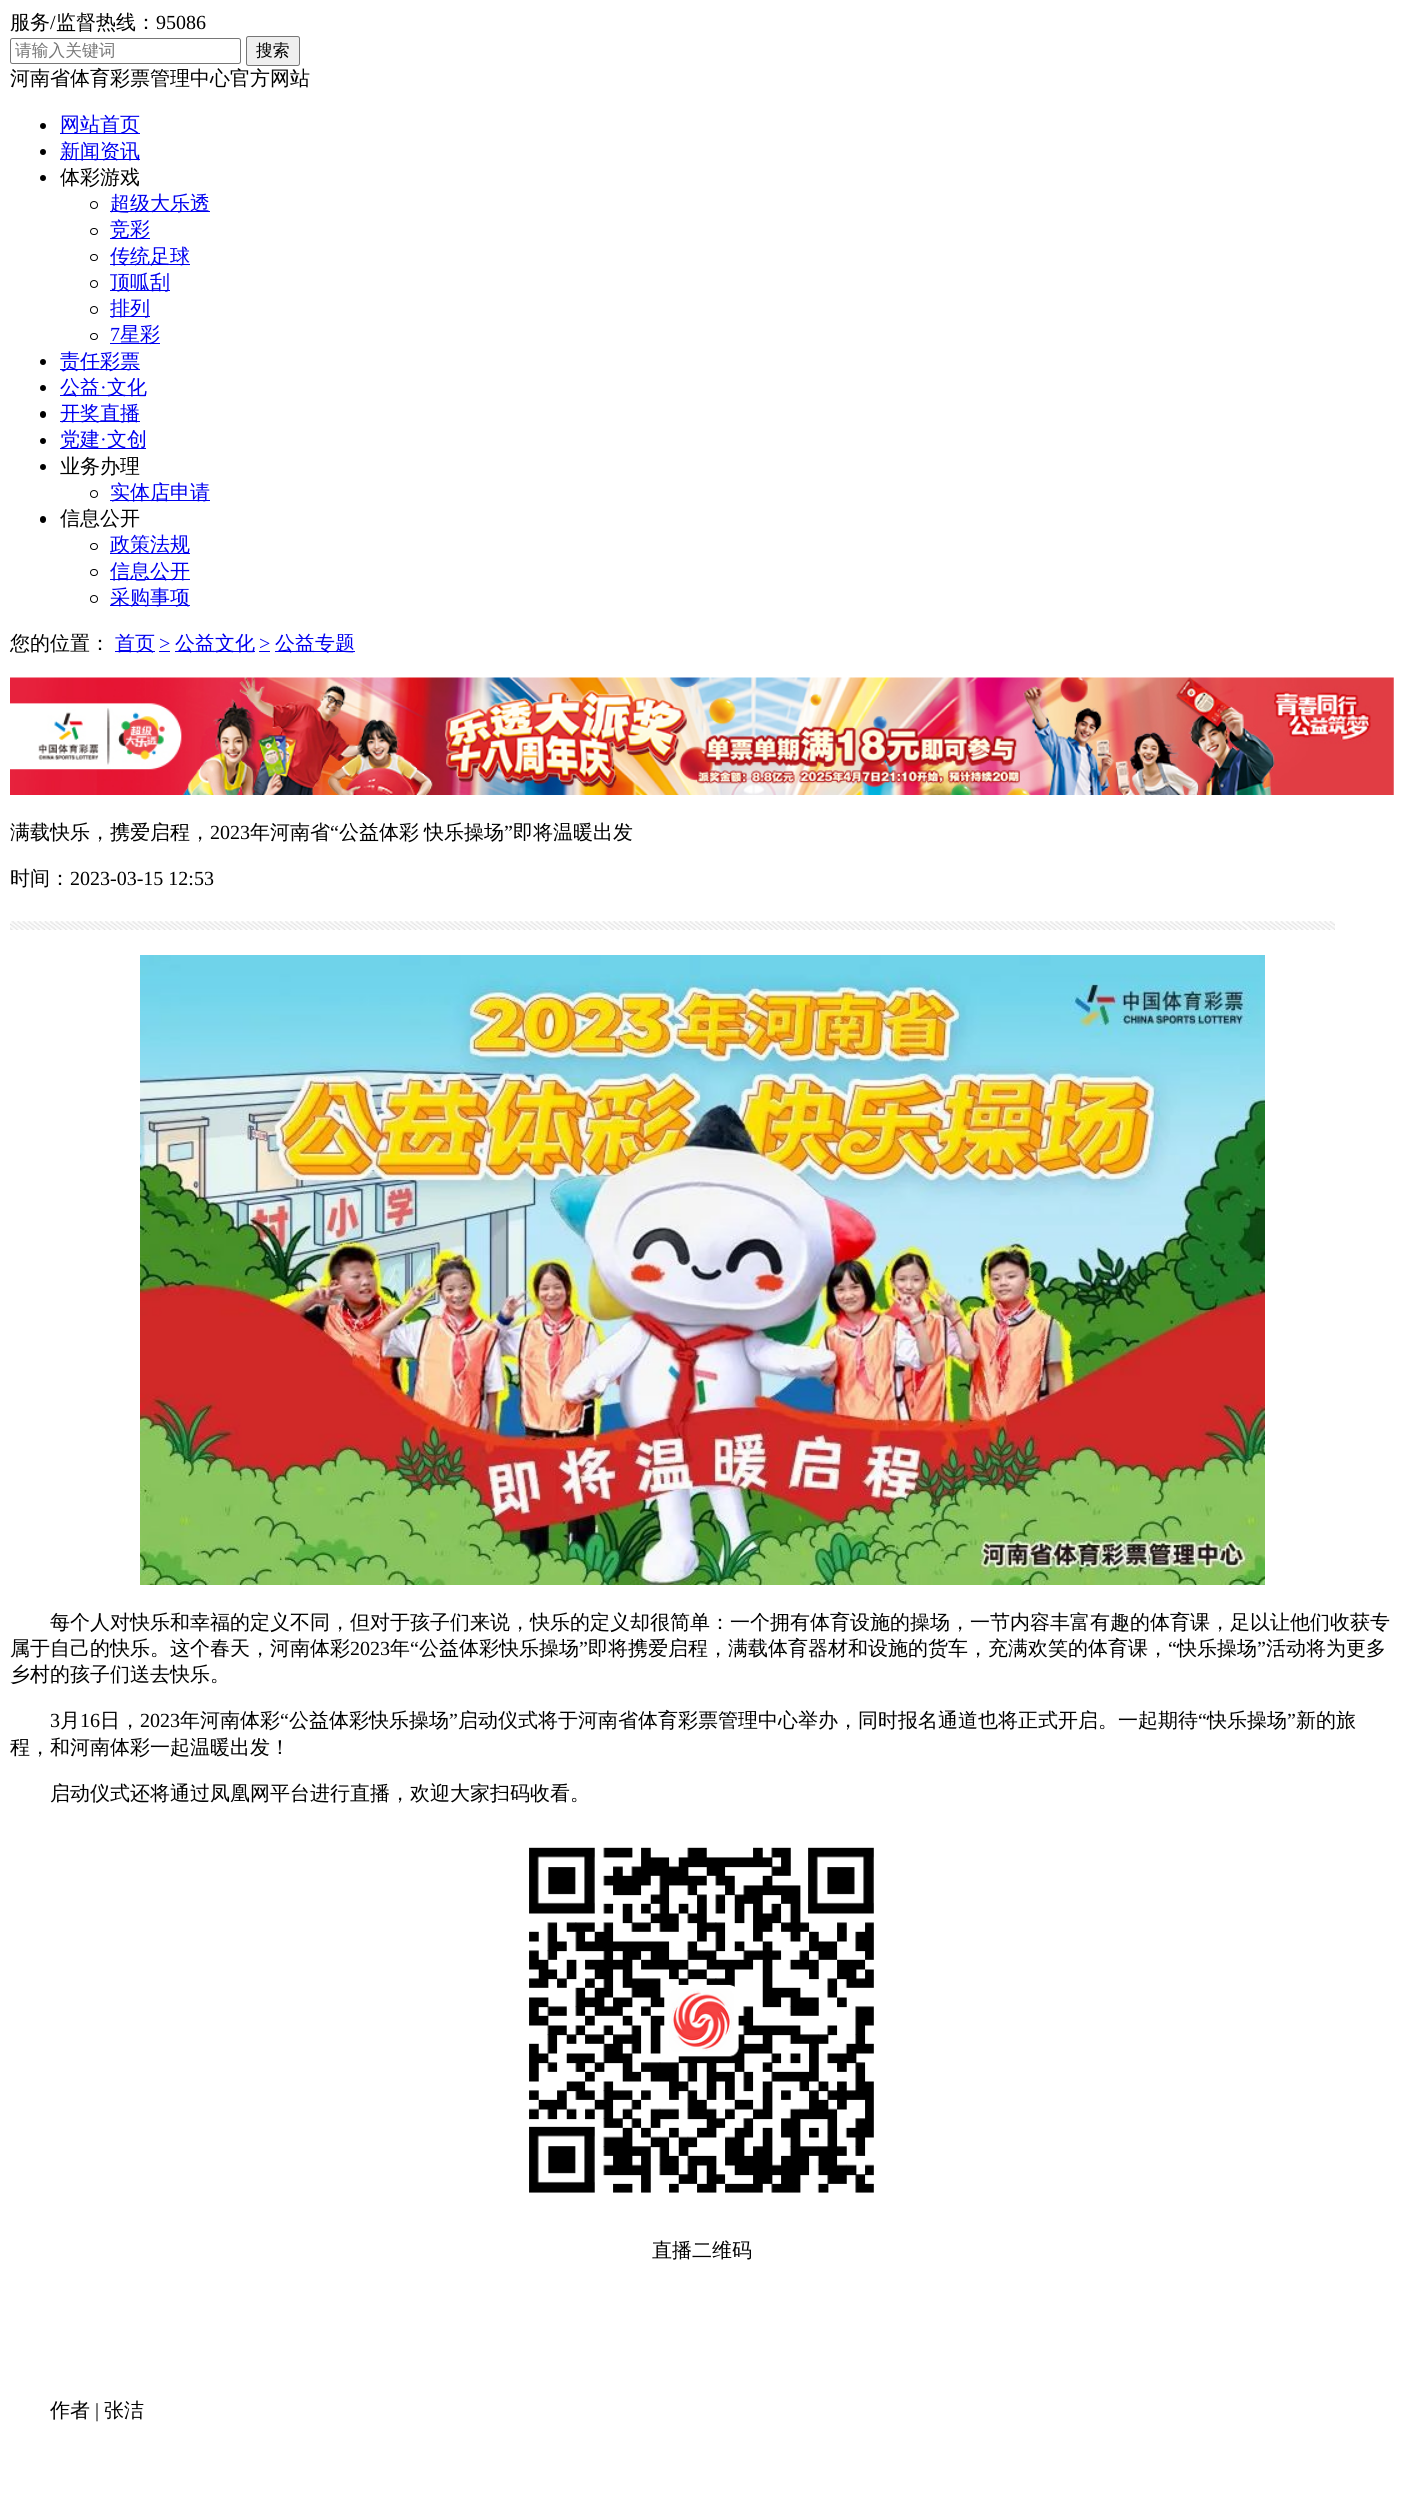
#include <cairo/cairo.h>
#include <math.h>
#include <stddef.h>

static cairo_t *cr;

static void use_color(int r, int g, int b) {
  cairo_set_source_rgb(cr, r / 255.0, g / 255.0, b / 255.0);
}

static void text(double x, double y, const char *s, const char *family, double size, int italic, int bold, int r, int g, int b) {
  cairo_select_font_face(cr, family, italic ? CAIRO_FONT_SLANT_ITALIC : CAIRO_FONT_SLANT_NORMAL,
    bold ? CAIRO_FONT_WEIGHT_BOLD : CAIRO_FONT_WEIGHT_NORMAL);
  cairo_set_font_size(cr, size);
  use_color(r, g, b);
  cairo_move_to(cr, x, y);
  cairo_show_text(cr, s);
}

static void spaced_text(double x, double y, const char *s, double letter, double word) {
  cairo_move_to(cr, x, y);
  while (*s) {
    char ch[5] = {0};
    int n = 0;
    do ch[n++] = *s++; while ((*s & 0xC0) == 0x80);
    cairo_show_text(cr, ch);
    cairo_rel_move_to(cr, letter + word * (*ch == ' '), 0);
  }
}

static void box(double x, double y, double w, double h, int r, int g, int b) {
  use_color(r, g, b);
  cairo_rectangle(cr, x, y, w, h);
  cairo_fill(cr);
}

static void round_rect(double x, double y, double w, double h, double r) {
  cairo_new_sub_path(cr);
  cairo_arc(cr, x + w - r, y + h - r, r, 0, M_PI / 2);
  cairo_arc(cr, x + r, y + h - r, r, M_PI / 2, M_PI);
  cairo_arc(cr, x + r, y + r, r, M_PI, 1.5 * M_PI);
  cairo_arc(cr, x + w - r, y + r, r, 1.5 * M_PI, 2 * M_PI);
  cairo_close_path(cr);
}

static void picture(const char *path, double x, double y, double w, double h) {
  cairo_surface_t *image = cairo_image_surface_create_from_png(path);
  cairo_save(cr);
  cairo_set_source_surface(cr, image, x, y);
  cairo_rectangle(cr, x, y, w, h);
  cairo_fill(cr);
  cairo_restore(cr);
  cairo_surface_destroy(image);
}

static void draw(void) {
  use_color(255, 255, 255);
  cairo_paint(cr);
  round_rect(10.5, 38.5, 230, 25, 2);
  use_color(118, 118, 118);
  cairo_set_line_width(cr, 1);
  cairo_stroke(cr);
  use_color(239, 239, 239);
  round_rect(246.5, 36.5, 53, 29, 2);
  cairo_fill_preserve(cr);
  use_color(118, 118, 118);
  cairo_stroke(cr);
  use_color(0, 0, 0);
  cairo_arc(cr, 43, 126, 3, 0, 2 * M_PI);
  cairo_fill(cr);
  box(60, 133, 80, 1, 0, 0, 238);
  use_color(0, 0, 0);
  cairo_arc(cr, 43, 152, 3, 0, 2 * M_PI);
  cairo_fill(cr);
  box(60, 159, 80, 1, 0, 0, 238);
  use_color(0, 0, 0);
  cairo_arc(cr, 43, 178, 3, 0, 2 * M_PI);
  cairo_fill(cr);
  cairo_arc(cr, 94, 205, 3.5, 0, 2 * M_PI);
  cairo_stroke(cr);
  box(110, 211, 100, 1, 0, 0, 238);
  round_rect(90.5, 228.5, 7, 6, 3);
  use_color(0, 0, 0);
  cairo_stroke(cr);
  box(110, 238, 40, 1, 0, 0, 238);
  round_rect(90.5, 254.5, 7, 6, 3);
  use_color(0, 0, 0);
  cairo_stroke(cr);
  box(110, 264, 80, 1, 0, 0, 238);
  cairo_arc(cr, 94, 284, 3.5, 0, 2 * M_PI);
  use_color(0, 0, 0);
  cairo_stroke(cr);
  box(110, 290, 60, 1, 0, 0, 238);
  cairo_arc(cr, 94, 310, 3.5, 0, 2 * M_PI);
  use_color(0, 0, 0);
  cairo_stroke(cr);
  box(110, 316, 40, 1, 0, 0, 238);
  round_rect(90.5, 333.5, 7, 6, 3);
  use_color(0, 0, 0);
  cairo_stroke(cr);
  box(110, 343, 50, 1, 0, 0, 238);
  use_color(0, 0, 0);
  cairo_arc(cr, 43, 362, 3, 0, 2 * M_PI);
  cairo_fill(cr);
  box(60, 369, 80, 1, 0, 0, 238);
  use_color(0, 0, 0);
  cairo_arc(cr, 43, 388, 3, 0, 2 * M_PI);
  cairo_fill(cr);
  box(60, 395, 86, 1, 0, 0, 238);
  use_color(0, 0, 0);
  round_rect(40, 411, 6, 7, 3);
  cairo_fill(cr);
  box(60, 421, 80, 1, 0, 0, 238);
  use_color(0, 0, 0);
  cairo_arc(cr, 43, 441, 3, 0, 2 * M_PI);
  cairo_fill(cr);
  box(60, 448, 86, 1, 0, 0, 238);
  use_color(0, 0, 0);
  cairo_arc(cr, 43, 467, 3, 0, 2 * M_PI);
  cairo_fill(cr);
  cairo_arc(cr, 94, 494, 3.5, 0, 2 * M_PI);
  cairo_stroke(cr);
  box(110, 500, 100, 1, 0, 0, 238);
  use_color(0, 0, 0);
  round_rect(40, 516, 6, 7, 3);
  cairo_fill(cr);
  round_rect(90.5, 543.5, 7, 6, 3);
  cairo_stroke(cr);
  box(110, 553, 80, 1, 0, 0, 238);
  round_rect(90.5, 569.5, 7, 6, 3);
  use_color(0, 0, 0);
  cairo_stroke(cr);
  box(110, 579, 80, 1, 0, 0, 238);
  cairo_arc(cr, 94, 599, 3.5, 0, 2 * M_PI);
  use_color(0, 0, 0);
  cairo_stroke(cr);
  box(110, 605, 80, 1, 0, 0, 238);
  box(115, 651, 40, 1, 0, 0, 238);
  box(159, 651, 11, 1, 0, 0, 238);
  box(175, 651, 80, 1, 0, 0, 238);
  box(259, 651, 11, 1, 0, 0, 238);
  box(275, 651, 80, 1, 0, 0, 238);
  picture("img_01.png", 10, 677, 1384, 118);
  picture("img_02.png", 10, 921, 1325, 9);
  picture("img_03.png", 140, 955, 1125, 630);
  picture("img_04.png", 529, 1847, 345, 346);
  text(10, 29, "服务", "WenQuanYi Zen Hei Medium", 20, 0, 0, 0, 0, 0);
  text(50, 29, "/", "Liberation Serif", 20, 0, 0, 0, 0, 0);
  text(56, 29, "监督热线：", "WenQuanYi Zen Hei Medium", 20, 0, 0, 0, 0, 0);
  text(156, 29, "95086", "Liberation Serif", 20, 0, 0, 0, 0, 0);
  text(15, 56, "请输入关键词", "WenQuanYi Zen Hei Medium", 16.75, 0, 0, 117, 117, 117);
  text(256, 56, "搜索", "WenQuanYi Zen Hei Medium", 16.75, 0, 0, 0, 0, 0);
  text(10, 85, "河南省体育彩票管理中心官方网站", "WenQuanYi Zen Hei Medium", 20, 0, 0, 0, 0, 0);
  text(60, 131, "网站首页", "WenQuanYi Zen Hei Medium", 20, 0, 0, 0, 0, 238);
  text(60, 158, "新闻资讯", "WenQuanYi Zen Hei Medium", 20, 0, 0, 0, 0, 238);
  text(60, 184, "体彩游戏", "WenQuanYi Zen Hei Medium", 20, 0, 0, 0, 0, 0);
  text(110, 210, "超级大乐透", "WenQuanYi Zen Hei Medium", 20, 0, 0, 0, 0, 238);
  text(110, 236, "竞彩", "WenQuanYi Zen Hei Medium", 20, 0, 0, 0, 0, 238);
  text(110, 263, "传统足球", "WenQuanYi Zen Hei Medium", 20, 0, 0, 0, 0, 238);
  text(110, 289, "顶呱刮", "WenQuanYi Zen Hei Medium", 20, 0, 0, 0, 0, 238);
  text(110, 315, "排列", "WenQuanYi Zen Hei Medium", 20, 0, 0, 0, 0, 238);
  text(110, 341, "7", "Liberation Serif", 20, 0, 0, 0, 0, 238);
  text(120, 341, "星彩", "WenQuanYi Zen Hei Medium", 20, 0, 0, 0, 0, 238);
  text(60, 368, "责任彩票", "WenQuanYi Zen Hei Medium", 20, 0, 0, 0, 0, 238);
  text(60, 394, "公益", "WenQuanYi Zen Hei Medium", 20, 0, 0, 0, 0, 238);
  text(100, 394, "·", "Liberation Serif", 20, 0, 0, 0, 0, 238);
  text(107, 394, "文化", "WenQuanYi Zen Hei Medium", 20, 0, 0, 0, 0, 238);
  text(60, 420, "开奖直播", "WenQuanYi Zen Hei Medium", 20, 0, 0, 0, 0, 238);
  text(60, 446, "党建", "WenQuanYi Zen Hei Medium", 20, 0, 0, 0, 0, 238);
  text(100, 446, "·", "Liberation Serif", 20, 0, 0, 0, 0, 238);
  text(107, 446, "文创", "WenQuanYi Zen Hei Medium", 20, 0, 0, 0, 0, 238);
  text(60, 473, "业务办理", "WenQuanYi Zen Hei Medium", 20, 0, 0, 0, 0, 0);
  text(110, 499, "实体店申请", "WenQuanYi Zen Hei Medium", 20, 0, 0, 0, 0, 238);
  text(60, 525, "信息公开", "WenQuanYi Zen Hei Medium", 20, 0, 0, 0, 0, 0);
  text(110, 551, "政策法规", "WenQuanYi Zen Hei Medium", 20, 0, 0, 0, 0, 238);
  text(110, 578, "信息公开", "WenQuanYi Zen Hei Medium", 20, 0, 0, 0, 0, 238);
  text(110, 604, "采购事项", "WenQuanYi Zen Hei Medium", 20, 0, 0, 0, 0, 238);
  text(10, 650, "您的位置：", "WenQuanYi Zen Hei Medium", 20, 0, 0, 0, 0, 0);
  text(115, 650, "首页", "WenQuanYi Zen Hei Medium", 20, 0, 0, 0, 0, 238);
  text(159, 650, ">", "Liberation Serif", 20, 0, 0, 0, 0, 238);
  text(175, 650, "公益文化", "WenQuanYi Zen Hei Medium", 20, 0, 0, 0, 0, 238);
  text(259, 650, ">", "Liberation Serif", 20, 0, 0, 0, 0, 238);
  text(275, 650, "公益专题", "WenQuanYi Zen Hei Medium", 20, 0, 0, 0, 0, 238);
  text(10, 839, "满载快乐，携爱启程，", "WenQuanYi Zen Hei Medium", 20, 0, 0, 0, 0, 0);
  text(210, 839, "2023", "Liberation Serif", 20, 0, 0, 0, 0, 0);
  text(250, 839, "年河南省", "WenQuanYi Zen Hei Medium", 20, 0, 0, 0, 0, 0);
  text(330, 839, "“", "Liberation Serif", 20, 0, 0, 0, 0, 0);
  cairo_select_font_face(cr, "WenQuanYi Zen Hei Medium", CAIRO_FONT_SLANT_NORMAL, CAIRO_FONT_WEIGHT_NORMAL);
  spaced_text(339, 839, "公益体彩 快乐操场", 0, -1);
  text(504, 839, "”", "Liberation Serif", 20, 0, 0, 0, 0, 0);
  text(513, 839, "即将温暖出发", "WenQuanYi Zen Hei Medium", 20, 0, 0, 0, 0, 0);
  text(10, 885, "时间：", "WenQuanYi Zen Hei Medium", 20, 0, 0, 0, 0, 0);
  text(70, 885, "2023-03-15 12:53", "Liberation Serif", 20, 0, 0, 0, 0, 0);
  text(50, 1629, "每个人对快乐和幸福的定义不同，但对于孩子们来说，快乐的定义却很简单：一个拥有体育设施的操场，一节内容丰富有趣的体育课，足以让他们收获专", "WenQuanYi Zen Hei Medium", 20, 0, 0, 0, 0, 0);
  text(10, 1655, "属于自己的快乐。这个春天，河南体彩", "WenQuanYi Zen Hei Medium", 20, 0, 0, 0, 0, 0);
  text(350, 1655, "2023", "Liberation Serif", 20, 0, 0, 0, 0, 0);
  text(390, 1655, "年", "WenQuanYi Zen Hei Medium", 20, 0, 0, 0, 0, 0);
  text(410, 1655, "“", "Liberation Serif", 20, 0, 0, 0, 0, 0);
  text(419, 1655, "公益体彩快乐操场", "WenQuanYi Zen Hei Medium", 20, 0, 0, 0, 0, 0);
  text(579, 1655, "”", "Liberation Serif", 20, 0, 0, 0, 0, 0);
  text(588, 1655, "即将携爱启程，满载体育器材和设施的货车，充满欢笑的体育课，", "WenQuanYi Zen Hei Medium", 20, 0, 0, 0, 0, 0);
  text(1168, 1655, "“", "Liberation Serif", 20, 0, 0, 0, 0, 0);
  text(1177, 1655, "快乐操场", "WenQuanYi Zen Hei Medium", 20, 0, 0, 0, 0, 0);
  text(1257, 1655, "”", "Liberation Serif", 20, 0, 0, 0, 0, 0);
  text(1266, 1655, "活动将为更多", "WenQuanYi Zen Hei Medium", 20, 0, 0, 0, 0, 0);
  text(10, 1681, "乡村的孩子们送去快乐。", "WenQuanYi Zen Hei Medium", 20, 0, 0, 0, 0, 0);
  text(50, 1727, "3", "Liberation Serif", 20, 0, 0, 0, 0, 0);
  text(60, 1727, "月", "WenQuanYi Zen Hei Medium", 20, 0, 0, 0, 0, 0);
  text(80, 1727, "16", "Liberation Serif", 20, 0, 0, 0, 0, 0);
  text(100, 1727, "日，", "WenQuanYi Zen Hei Medium", 20, 0, 0, 0, 0, 0);
  text(140, 1727, "2023", "Liberation Serif", 20, 0, 0, 0, 0, 0);
  text(180, 1727, "年河南体彩", "WenQuanYi Zen Hei Medium", 20, 0, 0, 0, 0, 0);
  text(280, 1727, "“", "Liberation Serif", 20, 0, 0, 0, 0, 0);
  text(289, 1727, "公益体彩快乐操场", "WenQuanYi Zen Hei Medium", 20, 0, 0, 0, 0, 0);
  text(449, 1727, "”", "Liberation Serif", 20, 0, 0, 0, 0, 0);
  text(458, 1727, "启动仪式将于河南省体育彩票管理中心举办，同时报名通道也将正式开启。一起期待", "WenQuanYi Zen Hei Medium", 20, 0, 0, 0, 0, 0);
  text(1198, 1727, "“", "Liberation Serif", 20, 0, 0, 0, 0, 0);
  text(1207, 1727, "快乐操场", "WenQuanYi Zen Hei Medium", 20, 0, 0, 0, 0, 0);
  text(1287, 1727, "”", "Liberation Serif", 20, 0, 0, 0, 0, 0);
  text(1296, 1727, "新的旅", "WenQuanYi Zen Hei Medium", 20, 0, 0, 0, 0, 0);
  text(10, 1754, "程，和河南体彩一起温暖出发！", "WenQuanYi Zen Hei Medium", 20, 0, 0, 0, 0, 0);
  text(50, 1800, "启动仪式还将通过凤凰网平台进行直播，欢迎大家扫码收看。", "WenQuanYi Zen Hei Medium", 20, 0, 0, 0, 0, 0);
  text(652, 2257, "直播二维码", "WenQuanYi Zen Hei Medium", 20, 0, 0, 0, 0, 0);
  text(50, 2417, "作者", "WenQuanYi Zen Hei Medium", 20, 0, 0, 0, 0, 0);
  text(95, 2417, "|", "Liberation Serif", 20, 0, 0, 0, 0, 0);
  text(104, 2417, "张洁", "WenQuanYi Zen Hei Medium", 20, 0, 0, 0, 0, 0);
}

int main(void) {
  cairo_surface_t *surface = cairo_image_surface_create(CAIRO_FORMAT_RGB24, 1403, 2501);
  cr = cairo_create(surface);
  cairo_font_options_t *options = cairo_font_options_create();
  cairo_font_options_set_hint_metrics(options, CAIRO_HINT_METRICS_OFF);
  cairo_font_options_set_hint_style(options, CAIRO_HINT_STYLE_NONE);
  cairo_set_font_options(cr, options);
  cairo_set_miter_limit(cr, 4);
  draw();
  cairo_surface_write_to_png(surface, "out.png");
  cairo_font_options_destroy(options);
  cairo_destroy(cr);
  cairo_surface_destroy(surface);
  return 0;
}
